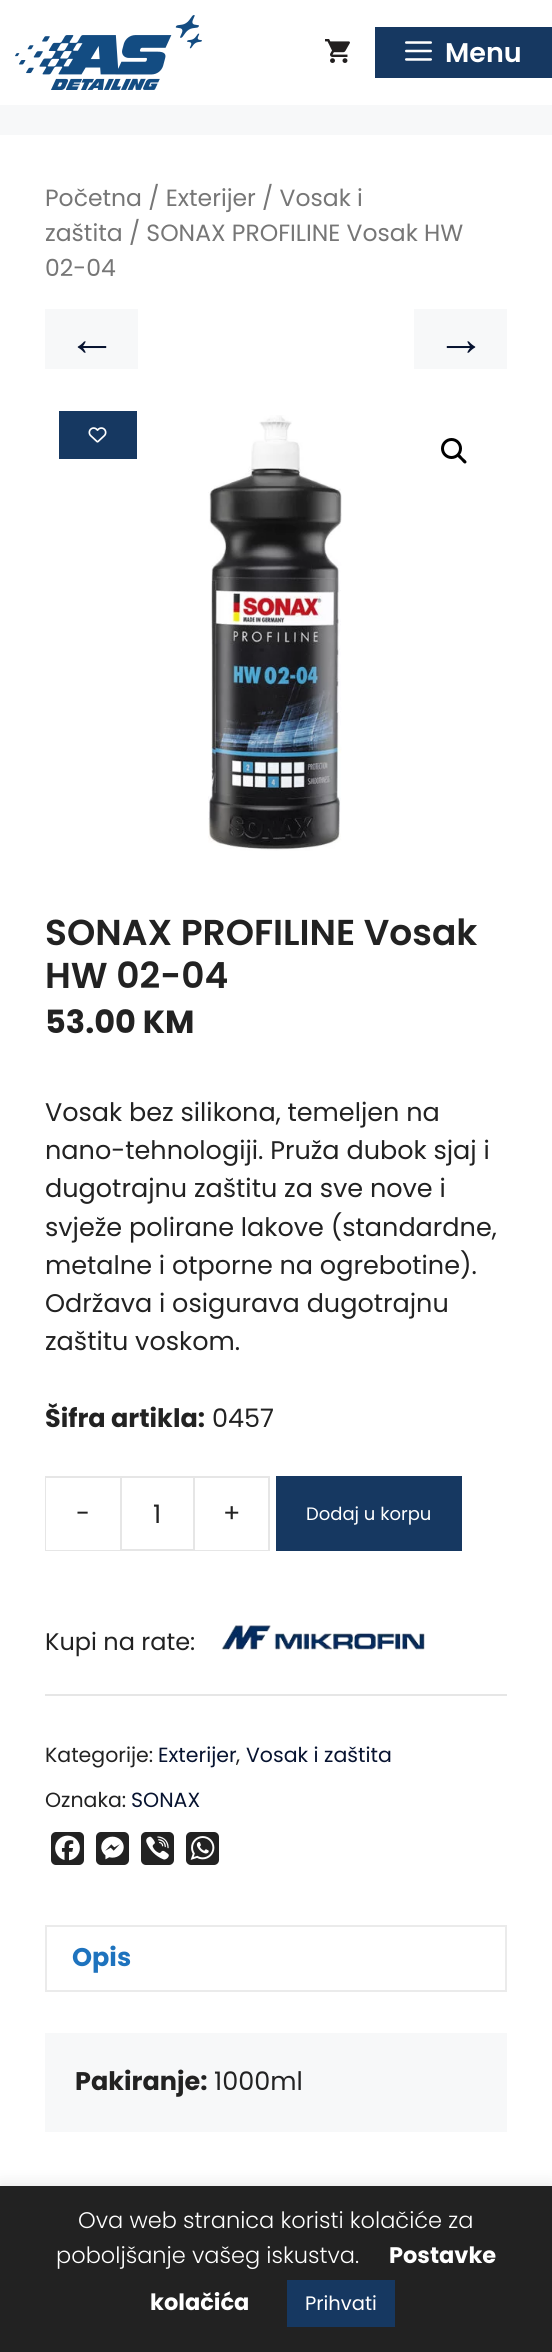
#include <cairo/cairo.h>
#include <math.h>
#include <stddef.h>

static cairo_t *cr;

static void use_color(int r, int g, int b) {
  cairo_set_source_rgb(cr, r / 255.0, g / 255.0, b / 255.0);
}

static void text(double x, double y, const char *s, const char *family, double size, int italic, int bold, int r, int g, int b) {
  cairo_select_font_face(cr, family, italic ? CAIRO_FONT_SLANT_ITALIC : CAIRO_FONT_SLANT_NORMAL,
    bold ? CAIRO_FONT_WEIGHT_BOLD : CAIRO_FONT_WEIGHT_NORMAL);
  cairo_set_font_size(cr, size);
  use_color(r, g, b);
  cairo_move_to(cr, x, y);
  cairo_show_text(cr, s);
}

static void box(double x, double y, double w, double h, int r, int g, int b) {
  use_color(r, g, b);
  cairo_rectangle(cr, x, y, w, h);
  cairo_fill(cr);
}

static void round_rect(double x, double y, double w, double h, double r) {
  cairo_new_sub_path(cr);
  cairo_arc(cr, x + w - r, y + h - r, r, 0, M_PI / 2);
  cairo_arc(cr, x + r, y + h - r, r, M_PI / 2, M_PI);
  cairo_arc(cr, x + r, y + r, r, M_PI, 1.5 * M_PI);
  cairo_arc(cr, x + w - r, y + r, r, 1.5 * M_PI, 2 * M_PI);
  cairo_close_path(cr);
}

static void shadow(double x, double y, double w, double h, double r, double blur, double alpha) {
  cairo_push_group_with_content(cr, CAIRO_CONTENT_ALPHA);
  cairo_set_operator(cr, CAIRO_OPERATOR_SOURCE);
  for (int i = 15; i >= -15 && fmin(w, h) + blur * i / 3 > 0; i -= 2) {
    double e = blur * i / 6;
    cairo_set_source_rgba(cr, 0, 0, 0, alpha * erfc((i - 1) / 8.5) / 2);
    round_rect(x - e, y - e, w + 2 * e, h + 2 * e, fmax(0, fmin(r + e + blur * .6, fmin(w, h) / 2 + e)));
    cairo_fill(cr);
  }
  cairo_pattern_t *soft = cairo_pop_group(cr);
  cairo_mask(cr, soft);
  cairo_pattern_destroy(soft);
}

static void picture(const char *path, double x, double y, double w, double h) {
  cairo_surface_t *image = cairo_image_surface_create_from_png(path);
  cairo_save(cr);
  cairo_set_source_surface(cr, image, x, y);
  cairo_rectangle(cr, x, y, w, h);
  cairo_fill(cr);
  cairo_restore(cr);
  cairo_surface_destroy(image);
}

static void draw(void) {
  use_color(247, 248, 249);
  cairo_paint(cr);
  box(0, 0, 552, 105, 255, 255, 255);
  picture("img_01.png", 15, 15, 187, 75);
  picture("img_02.png", 325, 39, 25, 24);
  box(375, 27, 177, 51, 22, 56, 97);
  picture("img_03.png", 405, 41, 27, 20);
  box(0, 135, 552, 2051, 255, 255, 255);
  box(45, 309, 93, 60, 247, 248, 249);
  box(414, 309, 93, 60, 247, 248, 249);
  box(59, 411, 78, 48, 22, 56, 97);
  picture("img_04.png", 88, 427, 19, 16);
  picture("img_05.png", 208, 415, 134, 436);
  cairo_arc(cr, 451.5, 448.5, 9, 0, 2 * M_PI);
  use_color(0, 0, 0);
  cairo_set_line_width(cr, 3);
  cairo_stroke(cr);
  cairo_new_path(cr);
  cairo_move_to(cr, 458, 454.5);
  cairo_curve_to(cr, 459.5, 453, 462, 457, 463, 458);
  cairo_curve_to(cr, 464, 459, 468, 461.5, 466, 463);
  cairo_curve_to(cr, 464.5, 465, 462, 461, 461, 460);
  cairo_curve_to(cr, 460, 459, 456, 456.5, 458, 454.5);
  cairo_close_path(cr);
  cairo_fill(cr);
  use_color(230, 230, 230);
  cairo_new_path(cr);
  cairo_move_to(cr, 45, 1476);
  cairo_line_to(cr, 120, 1476);
  cairo_line_to(cr, 120, 1478);
  cairo_line_to(cr, 46, 1478);
  cairo_close_path(cr);
  cairo_fill(cr);
  cairo_new_path(cr);
  cairo_move_to(cr, 120, 1551);
  cairo_line_to(cr, 45, 1551);
  cairo_line_to(cr, 46, 1550);
  cairo_line_to(cr, 120, 1550);
  cairo_close_path(cr);
  cairo_fill(cr);
  cairo_set_source_rgba(cr, 0, 0, 0, 0.1);
  cairo_new_path(cr);
  cairo_move_to(cr, 45, 1551);
  cairo_line_to(cr, 45, 1476);
  cairo_line_to(cr, 46, 1478);
  cairo_line_to(cr, 46, 1550);
  cairo_close_path(cr);
  cairo_fill(cr);
  cairo_rectangle(cr, 121, 1477, 73, 73);
  use_color(230, 230, 230);
  cairo_set_line_width(cr, 2);
  cairo_stroke(cr);
  cairo_new_path(cr);
  cairo_move_to(cr, 195, 1476);
  cairo_line_to(cr, 270, 1476);
  cairo_line_to(cr, 268, 1478);
  cairo_line_to(cr, 195, 1478);
  cairo_close_path(cr);
  cairo_fill(cr);
  cairo_set_source_rgba(cr, 0, 0, 0, 0.1);
  cairo_new_path(cr);
  cairo_move_to(cr, 270, 1476);
  cairo_line_to(cr, 270, 1551);
  cairo_line_to(cr, 268, 1550);
  cairo_line_to(cr, 268, 1478);
  cairo_close_path(cr);
  cairo_fill(cr);
  cairo_new_path(cr);
  cairo_move_to(cr, 270, 1551);
  cairo_line_to(cr, 195, 1551);
  cairo_line_to(cr, 195, 1550);
  cairo_line_to(cr, 268, 1550);
  cairo_close_path(cr);
  cairo_fill(cr);
  box(276, 1476, 186, 75, 22, 56, 97);
  picture("img_06.png", 221, 1625, 204, 25);
  box(45, 1694, 462, 2, 230, 230, 230);
  use_color(34, 34, 34);
  round_rect(51, 1832, 33, 33, 5);
  cairo_fill(cr);
  picture("img_07.png", 55, 1835, 25, 26);
  round_rect(96, 1832, 33, 33, 5);
  cairo_fill(cr);
  picture("img_08.png", 101, 1836, 23, 24);
  round_rect(141, 1832, 33, 33, 5);
  cairo_fill(cr);
  picture("img_09.png", 146, 1836, 23, 24);
  round_rect(186, 1832, 33, 33, 5);
  cairo_fill(cr);
  picture("img_10.png", 190, 1836, 25, 24);
  cairo_rectangle(cr, 46, 1926, 460, 65);
  use_color(235, 235, 235);
  cairo_stroke(cr);
  box(45, 2033, 462, 99, 247, 248, 249);
  use_color(172, 171, 171);
  shadow(0, 2184, 552, 167, 0, 7.5, 0.3);
  box(0, 2186, 552, 166, 34, 34, 34);
  box(287, 2280, 108, 47, 22, 56, 97);
  text(445, 62, "Menu", "Poppins SemiBold", 27, 0, 0, 255, 255, 255);
  text(45, 206, "Početna / Exterijer / Vosak i", "Poppins", 23.5, 0, 0, 118, 118, 118);
  text(45, 241, "zaštita / SONAX PROFILINE Vosak HW", "Poppins", 23.5, 0, 0, 118, 118, 118);
  text(45, 276, "02-04", "Poppins", 23.5, 0, 0, 118, 118, 118);
  text(68, 355, "←", "Liberation Sans", 48, 0, 0, 7, 19, 48);
  text(437, 355, "→", "Liberation Sans", 48, 0, 0, 7, 19, 48);
  text(45, 945, "SONAX PROFILINE Vosak", "Poppins SemiBold", 36, 0, 0, 34, 34, 34);
  text(45, 988, "HW 02-04", "Poppins SemiBold", 36, 0, 0, 34, 34, 34);
  text(45, 1033, "53.00 KM", "Poppins", 32, 0, 1, 34, 34, 34);
  text(45, 1121, "Vosak bez silikona, temeljen na", "Poppins", 25.5, 0, 0, 34, 34, 34);
  text(45, 1159, "nano-tehnologiji. Pruža dubok sjaj i", "Poppins", 25.5, 0, 0, 34, 34, 34);
  text(45, 1197, "dugotrajnu zaštitu za sve nove i", "Poppins", 25.5, 0, 0, 34, 34, 34);
  text(45, 1236, "svježe polirane lakove (standardne,", "Poppins", 25.5, 0, 0, 34, 34, 34);
  text(45, 1274, "metalne i otporne na ogrebotine).", "Poppins", 25.5, 0, 0, 34, 34, 34);
  text(45, 1312, "Održava i osigurava dugotrajnu", "Poppins", 25.5, 0, 0, 34, 34, 34);
  text(45, 1350, "zaštitu voskom.", "Poppins", 25.5, 0, 0, 34, 34, 34);
  text(45, 1427, "Šifra artikla:", "Poppins", 25.5, 0, 1, 34, 34, 34);
  text(212, 1427, "0457", "Poppins", 25.5, 0, 0, 34, 34, 34);
  text(76, 1522, "-", "Poppins", 25.5, 0, 0, 34, 34, 34);
  text(153, 1523, "1", "Poppins", 25.5, 0, 0, 34, 34, 34);
  text(223, 1522, "+", "Poppins", 25.5, 0, 0, 34, 34, 34);
  text(306, 1520, "Dodaj u korpu", "Poppins", 18, 0, 0, 255, 255, 255);
  text(45, 1650, "Kupi na rate:", "Poppins", 24, 0, 0, 34, 34, 34);
  text(45, 1762, "Kategorije:", "Poppins", 20.5, 0, 0, 34, 34, 34);
  text(158, 1762, "Exterijer", "Poppins", 20.5, 0, 0, 7, 19, 48);
  text(236, 1762, ",", "Poppins", 20.5, 0, 0, 34, 34, 34);
  text(246, 1762, "Vosak i zaštita", "Poppins", 20.5, 0, 0, 7, 19, 48);
  text(45, 1807, "Oznaka:", "Poppins", 20.5, 0, 0, 34, 34, 34);
  text(131, 1807, "SONAX", "Poppins", 20.5, 0, 0, 7, 19, 48);
  text(72, 1966, "Opis", "Poppins", 25.5, 0, 1, 30, 115, 190);
  text(75, 2090, "Pakiranje:", "Poppins", 25.5, 0, 1, 34, 34, 34);
  text(214, 2090, "1000ml", "Poppins", 25.5, 0, 0, 34, 34, 34);
  text(78, 2228, "Ova web stranica koristi kolačiće za", "Poppins Light", 22.5, 0, 0, 255, 255, 255);
  text(56, 2263, "poboljšanje vašeg iskustva.", "Poppins Light", 22.5, 0, 0, 255, 255, 255);
  text(389, 2263, "Postavke", "Poppins", 22.5, 0, 1, 255, 255, 255);
  text(150, 2310, "kolačića", "Poppins", 22.5, 0, 1, 255, 255, 255);
  text(305, 2310, "Prihvati", "Poppins", 19.5, 0, 0, 255, 255, 255);
}

int main(void) {
  cairo_surface_t *surface = cairo_image_surface_create(CAIRO_FORMAT_RGB24, 552, 2352);
  cr = cairo_create(surface);
  cairo_font_options_t *options = cairo_font_options_create();
  cairo_font_options_set_hint_metrics(options, CAIRO_HINT_METRICS_OFF);
  cairo_font_options_set_hint_style(options, CAIRO_HINT_STYLE_NONE);
  cairo_set_font_options(cr, options);
  cairo_set_miter_limit(cr, 4);
  draw();
  cairo_surface_write_to_png(surface, "out.png");
  cairo_font_options_destroy(options);
  cairo_destroy(cr);
  cairo_surface_destroy(surface);
  return 0;
}
